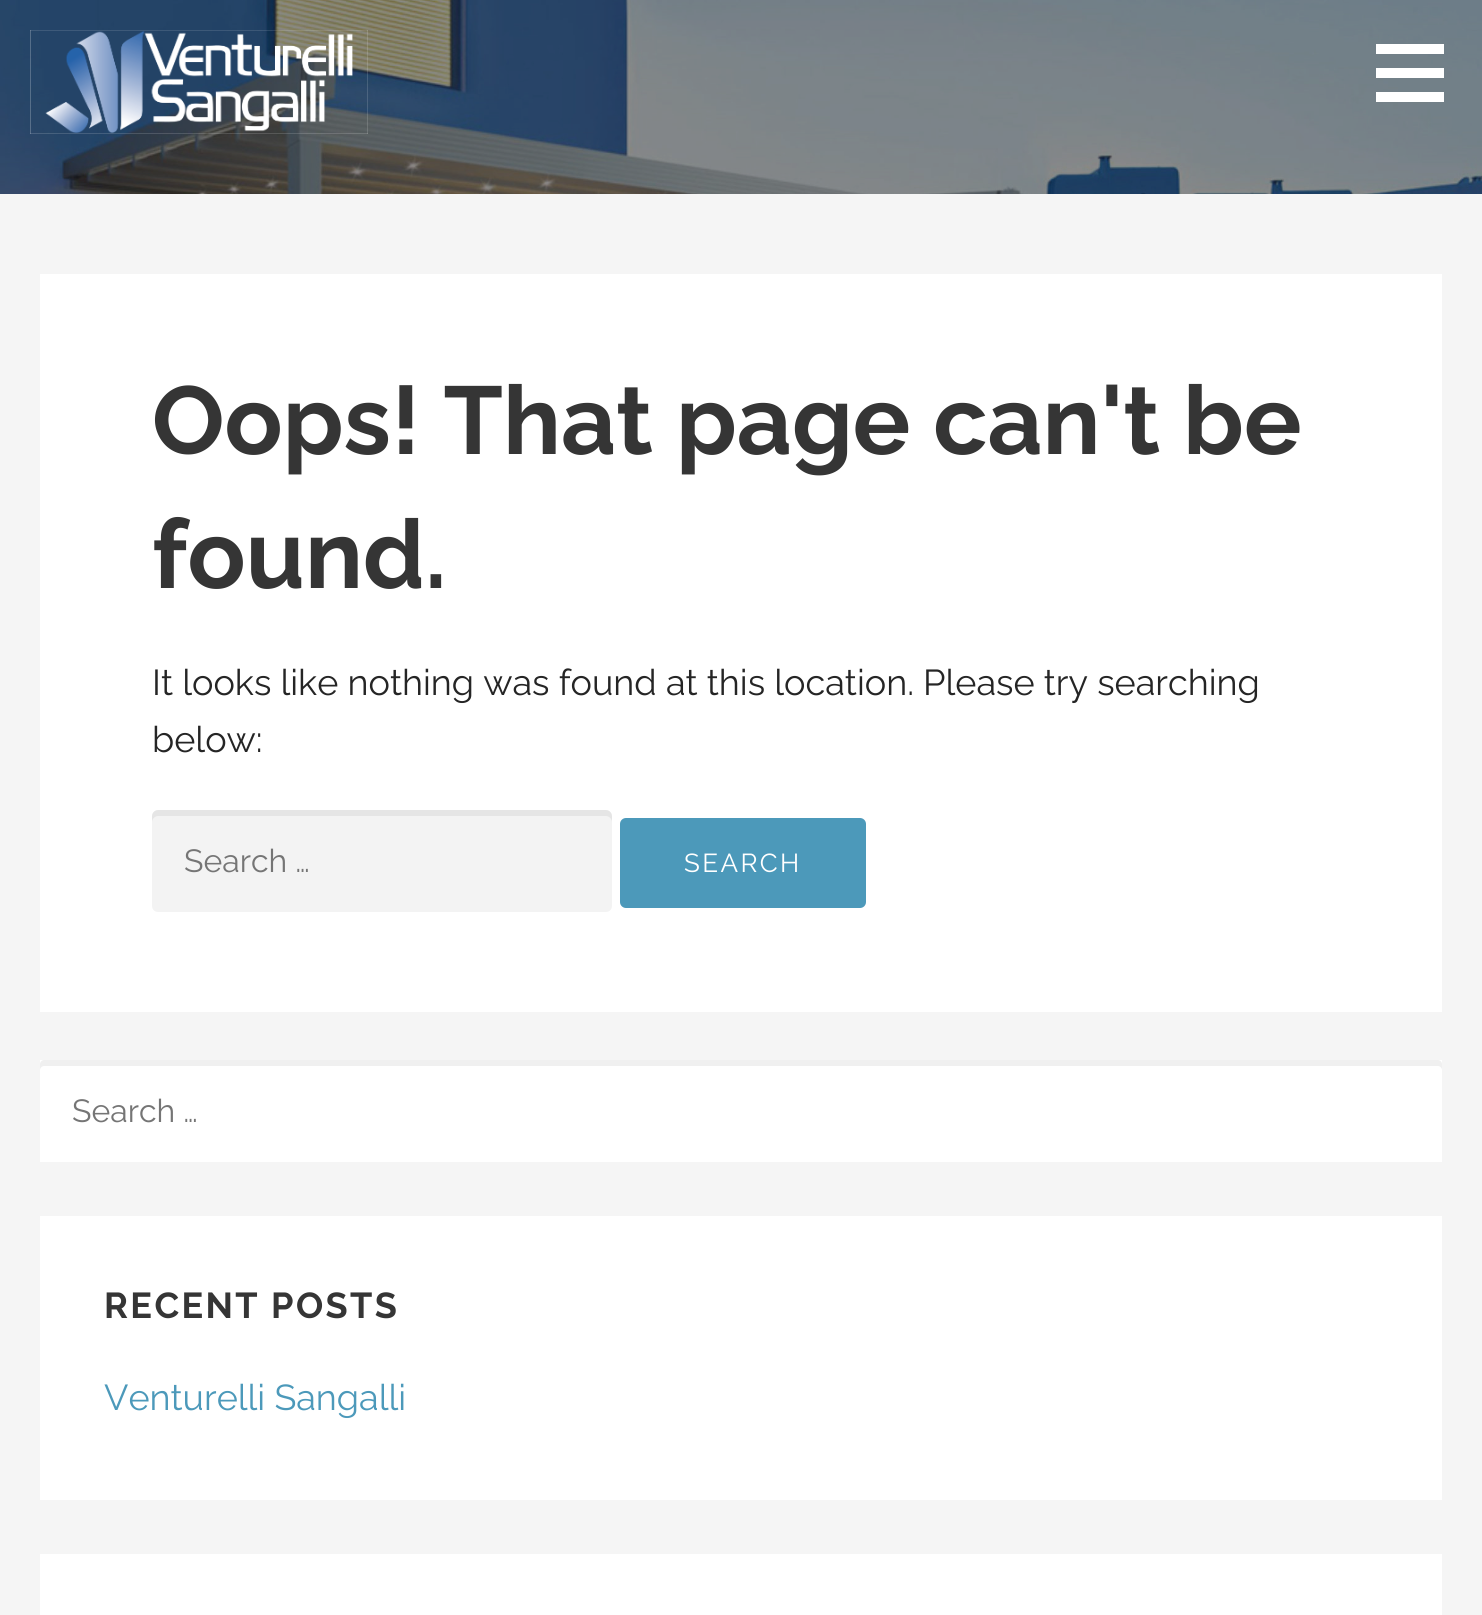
#include <cairo/cairo.h>
#include <math.h>
#include <stddef.h>

static cairo_t *cr;

static void use_color(int r, int g, int b) {
  cairo_set_source_rgb(cr, r / 255.0, g / 255.0, b / 255.0);
}

static void text(double x, double y, const char *s, const char *family, double size, int italic, int bold, int r, int g, int b) {
  cairo_select_font_face(cr, family, italic ? CAIRO_FONT_SLANT_ITALIC : CAIRO_FONT_SLANT_NORMAL,
    bold ? CAIRO_FONT_WEIGHT_BOLD : CAIRO_FONT_WEIGHT_NORMAL);
  cairo_set_font_size(cr, size);
  use_color(r, g, b);
  cairo_move_to(cr, x, y);
  cairo_show_text(cr, s);
}

static void spaced_text(double x, double y, const char *s, double letter, double word) {
  cairo_move_to(cr, x, y);
  while (*s) {
    char ch[5] = {0};
    int n = 0;
    do ch[n++] = *s++; while ((*s & 0xC0) == 0x80);
    cairo_show_text(cr, ch);
    cairo_rel_move_to(cr, letter + word * (*ch == ' '), 0);
  }
}

static void box(double x, double y, double w, double h, int r, int g, int b) {
  use_color(r, g, b);
  cairo_rectangle(cr, x, y, w, h);
  cairo_fill(cr);
}

static void round_rect(double x, double y, double w, double h, double r) {
  cairo_new_sub_path(cr);
  cairo_arc(cr, x + w - r, y + h - r, r, 0, M_PI / 2);
  cairo_arc(cr, x + r, y + h - r, r, M_PI / 2, M_PI);
  cairo_arc(cr, x + r, y + r, r, M_PI, 1.5 * M_PI);
  cairo_arc(cr, x + w - r, y + r, r, 1.5 * M_PI, 2 * M_PI);
  cairo_close_path(cr);
}

static void picture(const char *path, double x, double y, double w, double h) {
  cairo_surface_t *image = cairo_image_surface_create_from_png(path);
  cairo_save(cr);
  cairo_set_source_surface(cr, image, x, y);
  cairo_rectangle(cr, x, y, w, h);
  cairo_fill(cr);
  cairo_restore(cr);
  cairo_surface_destroy(image);
}

static void draw(void) {
  use_color(245, 245, 245);
  cairo_paint(cr);
  picture("img_01.png", 0, 0, 1482, 194);
  picture("img_02.png", 30, 30, 338, 104);
  box(1376, 44, 68, 10, 255, 255, 255);
  box(1376, 68, 68, 10, 255, 255, 255);
  box(1376, 92, 68, 10, 255, 255, 255);
  box(40, 274, 1402, 738, 255, 255, 255);
  use_color(243, 243, 243);
  round_rect(152, 810, 460, 102, 6);
  cairo_fill(cr);
  cairo_set_source_rgba(cr, 0.004, 0.004, 0.004, 0.06);
  cairo_new_path(cr);
  cairo_move_to(cr, 158, 816);
  cairo_line_to(cr, 606, 816);
  cairo_curve_to(cr, 609, 816, 612, 819, 612, 822);
  cairo_line_to(cr, 612, 816);
  cairo_curve_to(cr, 612, 813, 609, 810, 606, 810);
  cairo_line_to(cr, 158, 810);
  cairo_curve_to(cr, 155, 810, 152, 813, 152, 816);
  cairo_line_to(cr, 152, 822);
  cairo_curve_to(cr, 152, 819, 155, 816, 158, 816);
  cairo_close_path(cr);
  cairo_fill(cr);
  use_color(76, 153, 186);
  round_rect(620, 818, 246, 90, 6);
  cairo_fill(cr);
  box(40, 1060, 1402, 102, 255, 255, 255);
  use_color(240, 240, 240);
  cairo_new_path(cr);
  cairo_move_to(cr, 44, 1066);
  cairo_line_to(cr, 1438, 1066);
  cairo_curve_to(cr, 1440, 1066, 1442, 1068, 1442, 1070);
  cairo_line_to(cr, 1442, 1064);
  cairo_curve_to(cr, 1442, 1062, 1440, 1060, 1438, 1060);
  cairo_line_to(cr, 44, 1060);
  cairo_curve_to(cr, 42, 1060, 40, 1062, 40, 1064);
  cairo_line_to(cr, 40, 1070);
  cairo_curve_to(cr, 40, 1068, 42, 1066, 44, 1066);
  cairo_close_path(cr);
  cairo_fill(cr);
  box(40, 1216, 1402, 284, 255, 255, 255);
  box(40, 1554, 1402, 61, 255, 255, 255);
  text(152, 454, "Oops! That page can't be", "Raleway", 96, 0, 1, 53, 53, 53);
  text(152, 588, "found.", "Raleway", 96, 0, 1, 53, 53, 53);
  text(152, 695, "It looks like nothing was found at this location. Please try searching", "Raleway", 36, 0, 0, 37, 37, 37);
  text(152, 752, "below:", "Raleway", 36, 0, 0, 37, 37, 37);
  text(184, 872, "Search …", "Raleway", 32, 0, 0, 117, 117, 117);
  cairo_set_font_size(cr, 26);
  use_color(255, 255, 255);
  spaced_text(684, 872, "SEARCH", 2.4, 0);
  text(72, 1122, "Search …", "Raleway", 32, 0, 0, 117, 117, 117);
  cairo_select_font_face(cr, "Raleway", CAIRO_FONT_SLANT_NORMAL, CAIRO_FONT_WEIGHT_BOLD);
  cairo_set_font_size(cr, 36);
  use_color(53, 53, 53);
  spaced_text(104, 1318, "RECENT POSTS", 2.4, 0);
  text(104, 1410, "Venturelli Sangalli", "Raleway", 36, 0, 0, 76, 153, 186);
}

int main(void) {
  cairo_surface_t *surface = cairo_image_surface_create(CAIRO_FORMAT_RGB24, 1482, 1615);
  cr = cairo_create(surface);
  cairo_font_options_t *options = cairo_font_options_create();
  cairo_font_options_set_hint_metrics(options, CAIRO_HINT_METRICS_OFF);
  cairo_font_options_set_hint_style(options, CAIRO_HINT_STYLE_NONE);
  cairo_set_font_options(cr, options);
  cairo_set_miter_limit(cr, 4);
  draw();
  cairo_surface_write_to_png(surface, "out.png");
  cairo_font_options_destroy(options);
  cairo_destroy(cr);
  cairo_surface_destroy(surface);
  return 0;
}
